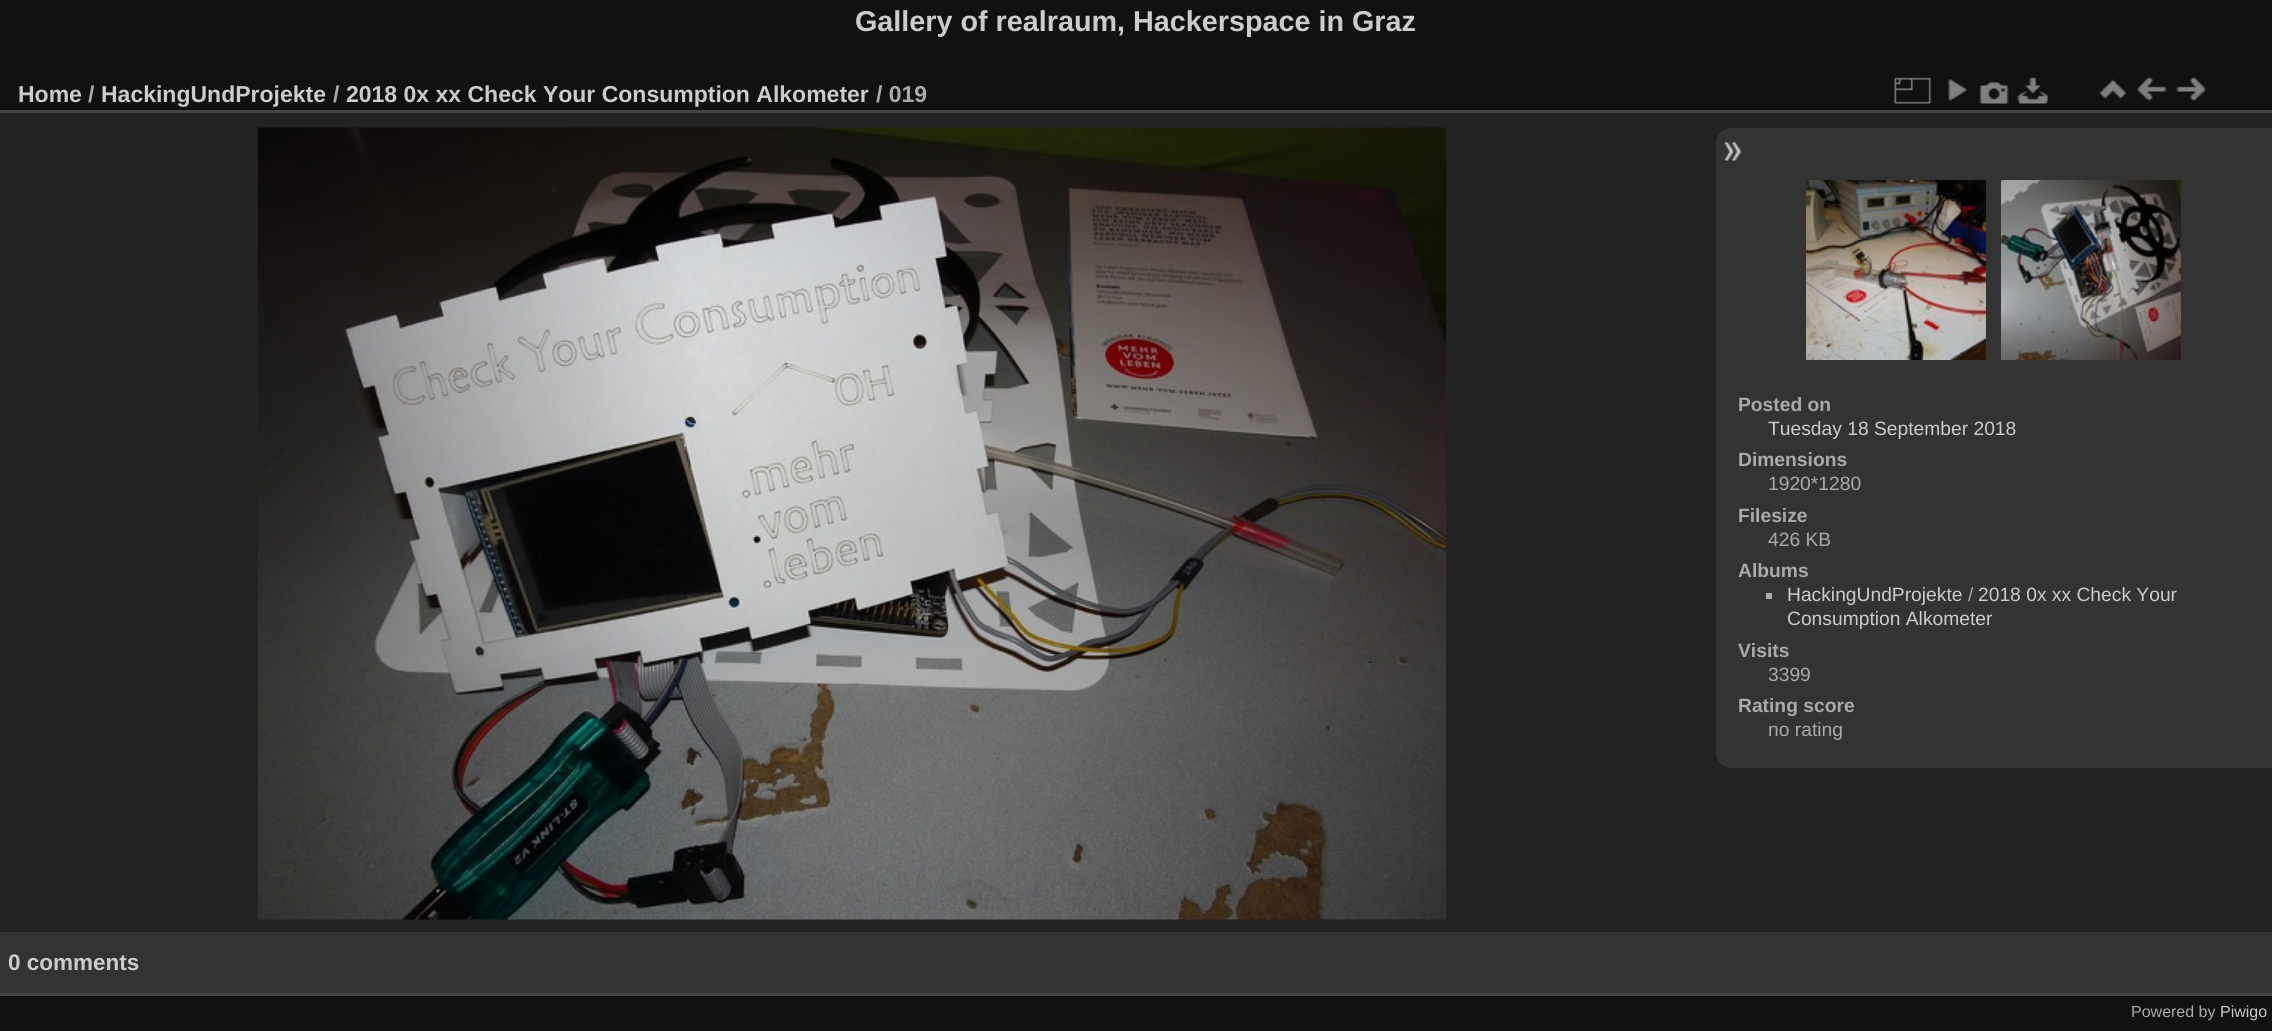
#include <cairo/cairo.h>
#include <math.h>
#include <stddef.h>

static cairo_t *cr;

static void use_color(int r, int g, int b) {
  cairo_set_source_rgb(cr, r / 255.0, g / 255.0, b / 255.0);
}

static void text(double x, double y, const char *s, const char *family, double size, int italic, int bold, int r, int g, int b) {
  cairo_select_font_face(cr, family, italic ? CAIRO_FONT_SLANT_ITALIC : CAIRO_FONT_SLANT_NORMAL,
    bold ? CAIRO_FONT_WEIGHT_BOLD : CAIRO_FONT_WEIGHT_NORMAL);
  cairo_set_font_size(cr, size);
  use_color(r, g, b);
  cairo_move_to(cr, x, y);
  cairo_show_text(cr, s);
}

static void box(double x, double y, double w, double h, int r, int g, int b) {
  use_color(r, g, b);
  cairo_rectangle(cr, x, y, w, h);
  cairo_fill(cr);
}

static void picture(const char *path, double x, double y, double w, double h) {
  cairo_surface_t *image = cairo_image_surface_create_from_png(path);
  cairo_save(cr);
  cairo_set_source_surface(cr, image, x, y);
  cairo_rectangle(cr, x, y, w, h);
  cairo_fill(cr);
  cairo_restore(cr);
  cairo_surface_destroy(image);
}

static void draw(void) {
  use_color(17, 17, 17);
  cairo_paint(cr);
  box(0, 113, 2272, 819, 34, 34, 34);
  box(0, 993, 2272, 3, 68, 68, 68);
  box(0, 110, 2272, 3, 68, 68, 68);
  picture("img_01.png", 1894, 77, 37, 27);
  picture("img_02.png", 1948, 79, 19, 22);
  picture("img_03.png", 1979, 82, 30, 22);
  picture("img_04.png", 2017, 77, 32, 27);
  picture("img_05.png", 2099, 79, 27, 21);
  picture("img_06.png", 2137, 77, 30, 24);
  picture("img_07.png", 2176, 77, 30, 24);
  picture("img_08.png", 258, 127, 1188, 793);
  use_color(51, 51, 51);
  cairo_new_path(cr);
  cairo_move_to(cr, 1731, 128);
  cairo_line_to(cr, 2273, 128);
  cairo_line_to(cr, 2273, 768);
  cairo_line_to(cr, 1731, 768);
  cairo_curve_to(cr, 1722.5, 768, 1716, 761.5, 1716, 753);
  cairo_line_to(cr, 1716, 143);
  cairo_curve_to(cr, 1716, 134.5, 1722.5, 128, 1731, 128);
  cairo_close_path(cr);
  cairo_fill(cr);
  picture("img_09.png", 1724, 142, 18, 19);
  picture("img_10.png", 1806, 180, 180, 180);
  picture("img_11.png", 2001, 180, 180, 180);
  box(1766, 593, 6, 6, 170, 170, 170);
  box(0, 932, 2272, 61, 51, 51, 51);
  text(855, 31, "Gallery of realraum, Hackerspace in Graz", "Liberation Sans", 28.75, 0, 1, 204, 204, 204);
  text(18, 102, "Home", "Liberation Sans", 23, 0, 1, 204, 204, 204);
  text(88, 102, "/", "Liberation Sans", 23, 0, 1, 170, 170, 170);
  text(101, 102, "HackingUndProjekte", "Liberation Sans", 23, 0, 1, 204, 204, 204);
  text(333, 102, "/", "Liberation Sans", 23, 0, 1, 170, 170, 170);
  text(346, 102, "2018 0x xx Check Your Consumption Alkometer", "Liberation Sans", 23, 0, 1, 204, 204, 204);
  text(876, 102, "/ 019", "Liberation Sans", 23, 0, 1, 170, 170, 170);
  text(1738, 411, "Posted on", "Liberation Sans", 19.25, 0, 1, 170, 170, 170);
  text(1768, 435, "Tuesday 18 September 2018", "Liberation Sans", 19.25, 0, 0, 204, 204, 204);
  text(1738, 466, "Dimensions", "Liberation Sans", 19.25, 0, 1, 170, 170, 170);
  text(1768, 490, "1920*1280", "Liberation Sans", 19.25, 0, 0, 170, 170, 170);
  text(1738, 522, "Filesize", "Liberation Sans", 19.25, 0, 1, 170, 170, 170);
  text(1768, 546, "426 KB", "Liberation Sans", 19.25, 0, 0, 170, 170, 170);
  text(1738, 577, "Albums", "Liberation Sans", 19.25, 0, 1, 170, 170, 170);
  text(1787, 601, "HackingUndProjekte", "Liberation Sans", 19.25, 0, 0, 204, 204, 204);
  text(1968, 601, "/", "Liberation Sans", 19.25, 0, 0, 170, 170, 170);
  text(1978, 601, "2018 0x xx Check Your", "Liberation Sans", 19.25, 0, 0, 204, 204, 204);
  text(1787, 625, "Consumption Alkometer", "Liberation Sans", 19.25, 0, 0, 204, 204, 204);
  text(1738, 657, "Visits", "Liberation Sans", 19.25, 0, 1, 170, 170, 170);
  text(1768, 681, "3399", "Liberation Sans", 19.25, 0, 0, 170, 170, 170);
  text(1738, 712, "Rating score", "Liberation Sans", 19.25, 0, 1, 170, 170, 170);
  text(1768, 736, "no rating", "Liberation Sans", 19.25, 0, 0, 170, 170, 170);
  text(8, 970, "0 comments", "Liberation Sans", 22.5, 0, 1, 204, 204, 204);
  text(2131, 1017, "Powered by", "Liberation Sans", 16, 0, 0, 170, 170, 170);
  text(2220, 1017, "Piwigo", "Liberation Sans", 16, 0, 0, 204, 204, 204);
}

int main(void) {
  cairo_surface_t *surface = cairo_image_surface_create(CAIRO_FORMAT_RGB24, 2272, 1031);
  cr = cairo_create(surface);
  cairo_font_options_t *options = cairo_font_options_create();
  cairo_font_options_set_hint_metrics(options, CAIRO_HINT_METRICS_OFF);
  cairo_font_options_set_hint_style(options, CAIRO_HINT_STYLE_NONE);
  cairo_set_font_options(cr, options);
  cairo_set_miter_limit(cr, 4);
  draw();
  cairo_surface_write_to_png(surface, "out.png");
  cairo_font_options_destroy(options);
  cairo_destroy(cr);
  cairo_surface_destroy(surface);
  return 0;
}
